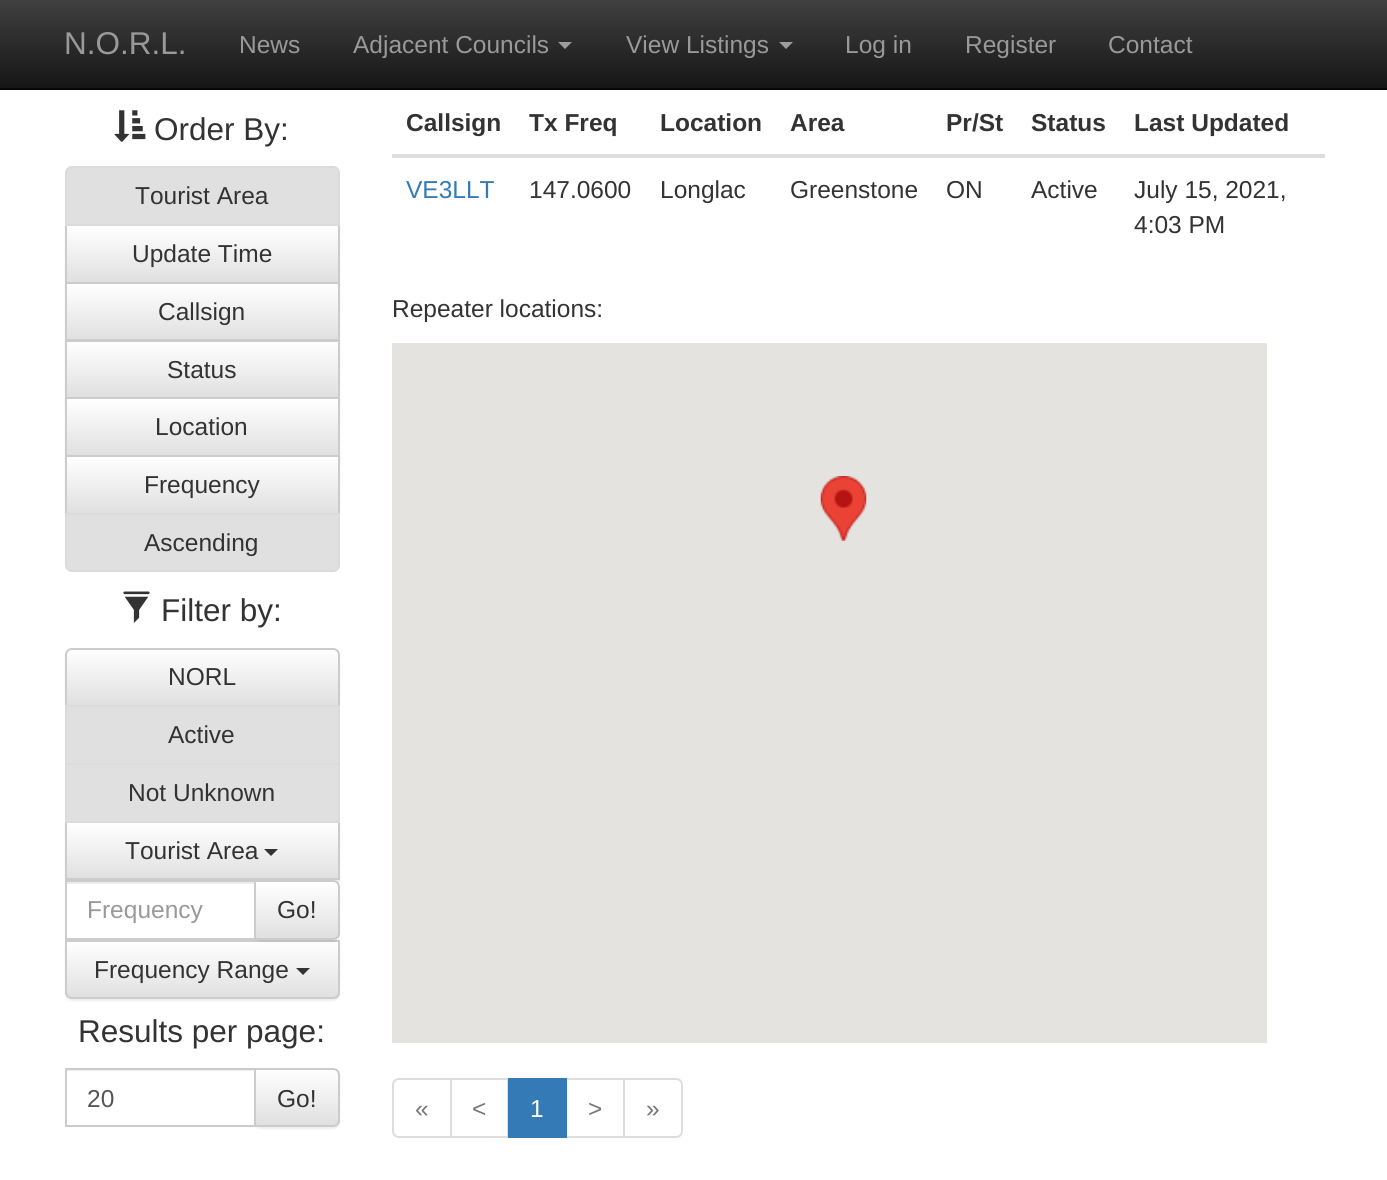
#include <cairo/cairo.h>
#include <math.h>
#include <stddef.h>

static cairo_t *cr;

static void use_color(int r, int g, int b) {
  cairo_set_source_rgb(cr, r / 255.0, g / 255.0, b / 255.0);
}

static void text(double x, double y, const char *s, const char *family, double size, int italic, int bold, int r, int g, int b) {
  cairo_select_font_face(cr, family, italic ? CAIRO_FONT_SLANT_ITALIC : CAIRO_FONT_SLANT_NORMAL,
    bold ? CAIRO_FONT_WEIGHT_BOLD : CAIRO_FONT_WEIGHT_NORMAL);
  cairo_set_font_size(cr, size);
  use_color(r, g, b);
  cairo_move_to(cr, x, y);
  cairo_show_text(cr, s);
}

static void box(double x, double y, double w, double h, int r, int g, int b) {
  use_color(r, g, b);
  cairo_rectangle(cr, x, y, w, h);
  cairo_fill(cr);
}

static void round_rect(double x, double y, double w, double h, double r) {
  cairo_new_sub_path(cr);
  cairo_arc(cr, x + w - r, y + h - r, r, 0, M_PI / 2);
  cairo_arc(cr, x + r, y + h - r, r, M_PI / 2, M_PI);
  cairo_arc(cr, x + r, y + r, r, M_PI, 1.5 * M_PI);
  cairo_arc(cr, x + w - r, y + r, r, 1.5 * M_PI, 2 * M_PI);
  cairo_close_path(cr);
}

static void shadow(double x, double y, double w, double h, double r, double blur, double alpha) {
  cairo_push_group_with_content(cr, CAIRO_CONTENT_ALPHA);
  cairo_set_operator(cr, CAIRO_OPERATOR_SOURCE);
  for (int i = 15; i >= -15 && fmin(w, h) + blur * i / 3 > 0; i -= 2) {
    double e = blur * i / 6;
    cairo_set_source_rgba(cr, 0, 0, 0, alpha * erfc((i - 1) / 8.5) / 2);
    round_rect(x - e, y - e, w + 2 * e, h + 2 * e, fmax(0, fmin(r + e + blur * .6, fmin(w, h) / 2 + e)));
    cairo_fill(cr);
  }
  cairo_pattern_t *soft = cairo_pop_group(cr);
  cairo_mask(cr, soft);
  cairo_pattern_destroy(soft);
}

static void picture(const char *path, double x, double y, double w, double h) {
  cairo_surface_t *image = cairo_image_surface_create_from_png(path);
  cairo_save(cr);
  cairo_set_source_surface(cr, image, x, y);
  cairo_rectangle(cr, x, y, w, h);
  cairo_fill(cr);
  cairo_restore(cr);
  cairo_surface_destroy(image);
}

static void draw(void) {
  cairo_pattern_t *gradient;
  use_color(255, 255, 255);
  cairo_paint(cr);
  gradient = cairo_pattern_create_linear(694, 0, 694, 88);
  cairo_pattern_add_color_stop_rgba(gradient, 0, 0.251, 0.251, 0.251, 1);
  cairo_pattern_add_color_stop_rgba(gradient, 1, 0.086, 0.086, 0.086, 1);
  cairo_set_source(cr, gradient);
  cairo_pattern_destroy(gradient);
  cairo_rectangle(cr, 0, 0, 1387, 88);
  cairo_fill(cr);
  box(0, 88, 1387, 2, 8, 8, 8);
  use_color(157, 157, 157);
  cairo_new_path(cr);
  cairo_move_to(cr, 558, 42);
  cairo_line_to(cr, 572, 42);
  cairo_line_to(cr, 565, 49);
  cairo_close_path(cr);
  cairo_fill(cr);
  cairo_new_path(cr);
  cairo_move_to(cr, 779, 42);
  cairo_line_to(cr, 793, 42);
  cairo_line_to(cr, 786, 49);
  cairo_close_path(cr);
  cairo_fill(cr);
  picture("img_01.png", 114, 110, 32, 32);
  use_color(0, 0, 0);
  shadow(65, 226, 275, 59, 0, 1, 0.07);
  gradient = cairo_pattern_create_linear(202, 226, 202, 282);
  cairo_pattern_add_color_stop_rgba(gradient, 0, 1, 1, 1, 1);
  cairo_pattern_add_color_stop_rgba(gradient, 1, 0.878, 0.878, 0.878, 1);
  cairo_set_source(cr, gradient);
  cairo_pattern_destroy(gradient);
  cairo_rectangle(cr, 67, 226, 271, 56);
  cairo_fill(cr);
  cairo_rectangle(cr, 66, 225, 273, 58);
  use_color(204, 204, 204);
  cairo_stroke(cr);
  use_color(224, 224, 224);
  cairo_new_path(cr);
  cairo_move_to(cr, 72, 167);
  cairo_line_to(cr, 333, 167);
  cairo_curve_to(cr, 336.5, 167, 339, 169.5, 339, 173);
  cairo_line_to(cr, 339, 225);
  cairo_line_to(cr, 66, 225);
  cairo_line_to(cr, 66, 173);
  cairo_curve_to(cr, 66, 169.5, 68.5, 167, 72, 167);
  cairo_close_path(cr);
  cairo_fill_preserve(cr);
  use_color(219, 219, 219);
  cairo_stroke(cr);
  use_color(0, 0, 0);
  shadow(65, 284, 275, 59, 0, 1, 0.07);
  gradient = cairo_pattern_create_linear(202, 284, 202, 340);
  cairo_pattern_add_color_stop_rgba(gradient, 0, 1, 1, 1, 1);
  cairo_pattern_add_color_stop_rgba(gradient, 1, 0.878, 0.878, 0.878, 1);
  cairo_set_source(cr, gradient);
  cairo_pattern_destroy(gradient);
  cairo_rectangle(cr, 67, 284, 271, 55);
  cairo_fill(cr);
  cairo_rectangle(cr, 66, 283, 273, 57);
  use_color(204, 204, 204);
  cairo_stroke(cr);
  use_color(0, 0, 0);
  shadow(65, 341, 275, 60, 0, 1, 0.07);
  gradient = cairo_pattern_create_linear(202, 341, 202, 397);
  cairo_pattern_add_color_stop_rgba(gradient, 0, 1, 1, 1, 1);
  cairo_pattern_add_color_stop_rgba(gradient, 1, 0.878, 0.878, 0.878, 1);
  cairo_set_source(cr, gradient);
  cairo_pattern_destroy(gradient);
  cairo_rectangle(cr, 67, 342, 271, 55);
  cairo_fill(cr);
  cairo_rectangle(cr, 66, 341, 273, 57);
  use_color(204, 204, 204);
  cairo_stroke(cr);
  use_color(0, 0, 0);
  shadow(65, 399, 275, 60, 0, 1, 0.07);
  gradient = cairo_pattern_create_linear(202, 399, 202, 455);
  cairo_pattern_add_color_stop_rgba(gradient, 0, 1, 1, 1, 1);
  cairo_pattern_add_color_stop_rgba(gradient, 1, 0.878, 0.878, 0.878, 1);
  cairo_set_source(cr, gradient);
  cairo_pattern_destroy(gradient);
  cairo_rectangle(cr, 67, 399, 271, 56);
  cairo_fill(cr);
  cairo_rectangle(cr, 66, 398, 273, 58);
  use_color(204, 204, 204);
  cairo_stroke(cr);
  use_color(0, 0, 0);
  shadow(65, 457, 275, 59, 0, 1, 0.07);
  gradient = cairo_pattern_create_linear(202, 457, 202, 513);
  cairo_pattern_add_color_stop_rgba(gradient, 0, 1, 1, 1, 1);
  cairo_pattern_add_color_stop_rgba(gradient, 1, 0.878, 0.878, 0.878, 1);
  cairo_set_source(cr, gradient);
  cairo_pattern_destroy(gradient);
  cairo_rectangle(cr, 67, 457, 271, 56);
  cairo_fill(cr);
  cairo_rectangle(cr, 66, 456, 273, 58);
  use_color(204, 204, 204);
  cairo_stroke(cr);
  use_color(224, 224, 224);
  cairo_new_path(cr);
  cairo_move_to(cr, 66, 514);
  cairo_line_to(cr, 339, 514);
  cairo_line_to(cr, 339, 565);
  cairo_curve_to(cr, 339, 568.5, 336.5, 571, 333, 571);
  cairo_line_to(cr, 72, 571);
  cairo_curve_to(cr, 68.5, 571, 66, 568.5, 66, 565);
  cairo_close_path(cr);
  cairo_fill_preserve(cr);
  use_color(219, 219, 219);
  cairo_stroke(cr);
  picture("img_02.png", 123, 591, 27, 32);
  use_color(0, 0, 0);
  shadow(65, 649, 275, 60, 7, 1, 0.07);
  cairo_save(cr);
  cairo_new_path(cr);
  cairo_move_to(cr, 72, 648);
  cairo_line_to(cr, 333, 648);
  cairo_curve_to(cr, 337, 648, 340, 651, 340, 655);
  cairo_line_to(cr, 340, 707);
  cairo_line_to(cr, 65, 707);
  cairo_line_to(cr, 65, 655);
  cairo_curve_to(cr, 65, 651, 68, 648, 72, 648);
  cairo_close_path(cr);
  cairo_clip(cr);
  gradient = cairo_pattern_create_linear(202, 649, 202, 705);
  cairo_pattern_add_color_stop_rgba(gradient, 0, 1, 1, 1, 1);
  cairo_pattern_add_color_stop_rgba(gradient, 1, 0.878, 0.878, 0.878, 1);
  cairo_set_source(cr, gradient);
  cairo_pattern_destroy(gradient);
  cairo_rectangle(cr, 65, 649, 275, 56);
  cairo_fill(cr);
  cairo_restore(cr);
  cairo_new_path(cr);
  cairo_move_to(cr, 72, 649);
  cairo_line_to(cr, 333, 649);
  cairo_curve_to(cr, 336.5, 649, 339, 651.5, 339, 655);
  cairo_line_to(cr, 339, 706);
  cairo_line_to(cr, 66, 706);
  cairo_line_to(cr, 66, 655);
  cairo_curve_to(cr, 66, 651.5, 68.5, 649, 72, 649);
  cairo_close_path(cr);
  use_color(204, 204, 204);
  cairo_stroke(cr);
  use_color(224, 224, 224);
  cairo_rectangle(cr, 66, 706, 273, 58);
  cairo_fill_preserve(cr);
  use_color(219, 219, 219);
  cairo_stroke(cr);
  use_color(0, 0, 0);
  shadow(65, 823, 275, 59, 0, 1, 0.07);
  gradient = cairo_pattern_create_linear(202, 823, 202, 879);
  cairo_pattern_add_color_stop_rgba(gradient, 0, 1, 1, 1, 1);
  cairo_pattern_add_color_stop_rgba(gradient, 1, 0.878, 0.878, 0.878, 1);
  cairo_set_source(cr, gradient);
  cairo_pattern_destroy(gradient);
  cairo_rectangle(cr, 67, 823, 271, 55);
  cairo_fill(cr);
  cairo_rectangle(cr, 66, 822, 273, 57);
  use_color(204, 204, 204);
  cairo_stroke(cr);
  use_color(224, 224, 224);
  cairo_rectangle(cr, 66, 764, 273, 58);
  cairo_fill_preserve(cr);
  use_color(219, 219, 219);
  cairo_stroke(cr);
  use_color(51, 51, 51);
  cairo_new_path(cr);
  cairo_move_to(cr, 264, 849);
  cairo_line_to(cr, 278, 849);
  cairo_line_to(cr, 271, 856);
  cairo_close_path(cr);
  cairo_fill(cr);
  box(67, 882, 187, 2, 236, 236, 236);
  use_color(0, 0, 0);
  shadow(65, 942, 275, 59, 7, 1, 0.07);
  cairo_rectangle(cr, 66, 881, 189, 58);
  use_color(204, 204, 204);
  cairo_stroke(cr);
  cairo_save(cr);
  cairo_new_path(cr);
  cairo_move_to(cr, 65, 940);
  cairo_line_to(cr, 340, 940);
  cairo_line_to(cr, 340, 992);
  cairo_curve_to(cr, 340, 996, 337, 999, 333, 999);
  cairo_line_to(cr, 72, 999);
  cairo_curve_to(cr, 68, 999, 65, 996, 65, 992);
  cairo_close_path(cr);
  cairo_clip(cr);
  gradient = cairo_pattern_create_linear(202, 942, 202, 998);
  cairo_pattern_add_color_stop_rgba(gradient, 0, 1, 1, 1, 1);
  cairo_pattern_add_color_stop_rgba(gradient, 1, 0.878, 0.878, 0.878, 1);
  cairo_set_source(cr, gradient);
  cairo_pattern_destroy(gradient);
  cairo_rectangle(cr, 65, 942, 275, 56);
  cairo_fill(cr);
  cairo_restore(cr);
  cairo_new_path(cr);
  cairo_move_to(cr, 66, 941);
  cairo_line_to(cr, 339, 941);
  cairo_line_to(cr, 339, 992);
  cairo_curve_to(cr, 339, 995.5, 336.5, 998, 333, 998);
  cairo_line_to(cr, 72, 998);
  cairo_curve_to(cr, 68.5, 998, 66, 995.5, 66, 992);
  cairo_close_path(cr);
  cairo_stroke(cr);
  use_color(0, 0, 0);
  shadow(254, 882, 86, 60, 7, 1, 0.07);
  cairo_save(cr);
  cairo_new_path(cr);
  cairo_move_to(cr, 254, 880);
  cairo_line_to(cr, 333, 880);
  cairo_curve_to(cr, 337, 880, 340, 883, 340, 887);
  cairo_line_to(cr, 340, 933);
  cairo_curve_to(cr, 340, 937, 337, 940, 333, 940);
  cairo_line_to(cr, 254, 940);
  cairo_close_path(cr);
  cairo_clip(cr);
  gradient = cairo_pattern_create_linear(297, 882, 297, 938);
  cairo_pattern_add_color_stop_rgba(gradient, 0, 1, 1, 1, 1);
  cairo_pattern_add_color_stop_rgba(gradient, 1, 0.878, 0.878, 0.878, 1);
  cairo_set_source(cr, gradient);
  cairo_pattern_destroy(gradient);
  cairo_rectangle(cr, 256, 882, 84, 56);
  cairo_fill(cr);
  cairo_restore(cr);
  cairo_new_path(cr);
  cairo_move_to(cr, 255, 881);
  cairo_line_to(cr, 333, 881);
  cairo_curve_to(cr, 336.5, 881, 339, 883.5, 339, 887);
  cairo_line_to(cr, 339, 933);
  cairo_curve_to(cr, 339, 936.5, 336.5, 939, 333, 939);
  cairo_line_to(cr, 255, 939);
  cairo_close_path(cr);
  use_color(204, 204, 204);
  cairo_stroke(cr);
  use_color(51, 51, 51);
  cairo_new_path(cr);
  cairo_move_to(cr, 296, 968);
  cairo_line_to(cr, 310, 968);
  cairo_line_to(cr, 303, 975);
  cairo_close_path(cr);
  cairo_fill(cr);
  box(67, 1070, 187, 1, 236, 236, 236);
  cairo_rectangle(cr, 66, 1069, 189, 57);
  use_color(204, 204, 204);
  cairo_stroke(cr);
  use_color(0, 0, 0);
  shadow(254, 1069, 86, 60, 7, 1, 0.07);
  cairo_save(cr);
  cairo_new_path(cr);
  cairo_move_to(cr, 254, 1068);
  cairo_line_to(cr, 333, 1068);
  cairo_curve_to(cr, 337, 1068, 340, 1071, 340, 1075);
  cairo_line_to(cr, 340, 1120);
  cairo_curve_to(cr, 340, 1124, 337, 1127, 333, 1127);
  cairo_line_to(cr, 254, 1127);
  cairo_close_path(cr);
  cairo_clip(cr);
  gradient = cairo_pattern_create_linear(297, 1069, 297, 1125);
  cairo_pattern_add_color_stop_rgba(gradient, 0, 1, 1, 1, 1);
  cairo_pattern_add_color_stop_rgba(gradient, 1, 0.878, 0.878, 0.878, 1);
  cairo_set_source(cr, gradient);
  cairo_pattern_destroy(gradient);
  cairo_rectangle(cr, 256, 1069, 84, 56);
  cairo_fill(cr);
  cairo_restore(cr);
  cairo_new_path(cr);
  cairo_move_to(cr, 255, 1069);
  cairo_line_to(cr, 333, 1069);
  cairo_curve_to(cr, 336.5, 1069, 339, 1071.5, 339, 1075);
  cairo_line_to(cr, 339, 1120);
  cairo_curve_to(cr, 339, 1123.5, 336.5, 1126, 333, 1126);
  cairo_line_to(cr, 255, 1126);
  cairo_close_path(cr);
  use_color(204, 204, 204);
  cairo_stroke(cr);
  box(392, 154, 933, 4, 221, 221, 221);
  box(392, 343, 875, 700, 229, 227, 223);
  picture("img_03.png", 820, 476, 47, 65);
  cairo_new_path(cr);
  cairo_move_to(cr, 399, 1079);
  cairo_line_to(cr, 451, 1079);
  cairo_line_to(cr, 451, 1137);
  cairo_line_to(cr, 399, 1137);
  cairo_curve_to(cr, 395.5, 1137, 393, 1134.5, 393, 1131);
  cairo_line_to(cr, 393, 1085);
  cairo_curve_to(cr, 393, 1081.5, 395.5, 1079, 399, 1079);
  cairo_close_path(cr);
  use_color(221, 221, 221);
  cairo_stroke(cr);
  cairo_rectangle(cr, 451, 1079, 57, 58);
  cairo_stroke(cr);
  cairo_rectangle(cr, 566, 1079, 58, 58);
  cairo_stroke(cr);
  box(508, 1078, 59, 60, 51, 122, 183);
  use_color(255, 255, 255);
  cairo_new_path(cr);
  cairo_move_to(cr, 624, 1079);
  cairo_line_to(cr, 676, 1079);
  cairo_curve_to(cr, 679.5, 1079, 682, 1081.5, 682, 1085);
  cairo_line_to(cr, 682, 1131);
  cairo_curve_to(cr, 682, 1134.5, 679.5, 1137, 676, 1137);
  cairo_line_to(cr, 624, 1137);
  cairo_close_path(cr);
  cairo_fill_preserve(cr);
  use_color(221, 221, 221);
  cairo_stroke(cr);
  text(64, 54, "N.O.R.L.", "Liberation Sans", 31.5, 0, 0, 153, 153, 153);
  text(239, 53, "News", "Liberation Sans", 24.5, 0, 0, 153, 153, 153);
  text(353, 53, "Adjacent Councils", "Liberation Sans", 24.5, 0, 0, 153, 153, 153);
  text(626, 53, "View Listings", "Liberation Sans", 24.5, 0, 0, 153, 153, 153);
  text(845, 53, "Log in", "Liberation Sans", 24.5, 0, 0, 153, 153, 153);
  text(965, 53, "Register", "Liberation Sans", 24.5, 0, 0, 153, 153, 153);
  text(1108, 53, "Contact", "Liberation Sans", 24.5, 0, 0, 153, 153, 153);
  text(154, 140, "Order By:", "Liberation Sans", 31.5, 0, 0, 51, 51, 51);
  text(135, 204, "Tourist Area", "Liberation Sans", 24.5, 0, 0, 51, 51, 51);
  text(132, 262, "Update Time", "Liberation Sans", 24.5, 0, 0, 51, 51, 51);
  text(158, 320, "Callsign", "Liberation Sans", 24.5, 0, 0, 51, 51, 51);
  text(167, 378, "Status", "Liberation Sans", 24.5, 0, 0, 51, 51, 51);
  text(155, 435, "Location", "Liberation Sans", 24.5, 0, 0, 51, 51, 51);
  text(144, 493, "Frequency", "Liberation Sans", 24.5, 0, 0, 51, 51, 51);
  text(144, 551, "Ascending", "Liberation Sans", 24.5, 0, 0, 51, 51, 51);
  text(161, 621, "Filter by:", "Liberation Sans", 31.5, 0, 0, 51, 51, 51);
  text(168, 685, "NORL", "Liberation Sans", 24.5, 0, 0, 51, 51, 51);
  text(168, 743, "Active", "Liberation Sans", 24.5, 0, 0, 51, 51, 51);
  text(128, 801, "Not Unknown", "Liberation Sans", 24.5, 0, 0, 51, 51, 51);
  text(125, 859, "Tourist Area", "Liberation Sans", 24.5, 0, 0, 51, 51, 51);
  text(87, 918, "Frequency", "Liberation Sans", 24.5, 0, 0, 153, 153, 153);
  text(277, 918, "Go!", "Liberation Sans", 24.5, 0, 0, 51, 51, 51);
  text(94, 978, "Frequency Range", "Liberation Sans", 24.5, 0, 0, 51, 51, 51);
  text(78, 1042, "Results per page:", "Liberation Sans", 31.5, 0, 0, 51, 51, 51);
  text(87, 1107, "20", "Liberation Sans", 24.5, 0, 0, 85, 85, 85);
  text(277, 1107, "Go!", "Liberation Sans", 24.5, 0, 0, 51, 51, 51);
  text(406, 131, "Callsign", "Liberation Sans", 24.5, 0, 1, 51, 51, 51);
  text(529, 131, "Tx Freq", "Liberation Sans", 24.5, 0, 1, 51, 51, 51);
  text(660, 131, "Location", "Liberation Sans", 24.5, 0, 1, 51, 51, 51);
  text(790, 131, "Area", "Liberation Sans", 24.5, 0, 1, 51, 51, 51);
  text(946, 131, "Pr/St", "Liberation Sans", 24.5, 0, 1, 51, 51, 51);
  text(1031, 131, "Status", "Liberation Sans", 24.5, 0, 1, 51, 51, 51);
  text(1134, 131, "Last Updated", "Liberation Sans", 24.5, 0, 1, 51, 51, 51);
  text(406, 198, "VE3LLT", "Liberation Sans", 24.5, 0, 0, 51, 122, 183);
  text(529, 198, "147.0600", "Liberation Sans", 24.5, 0, 0, 51, 51, 51);
  text(660, 198, "Longlac", "Liberation Sans", 24.5, 0, 0, 51, 51, 51);
  text(790, 198, "Greenstone", "Liberation Sans", 24.5, 0, 0, 51, 51, 51);
  text(946, 198, "ON", "Liberation Sans", 24.5, 0, 0, 51, 51, 51);
  text(1031, 198, "Active", "Liberation Sans", 24.5, 0, 0, 51, 51, 51);
  text(1134, 198, "July 15, 2021,", "Liberation Sans", 24.5, 0, 0, 51, 51, 51);
  text(1134, 233, "4:03 PM", "Liberation Sans", 24.5, 0, 0, 51, 51, 51);
  text(392, 317, "Repeater locations:", "Liberation Sans", 24.5, 0, 0, 51, 51, 51);
  text(415, 1117, "«", "Liberation Sans", 24.5, 0, 0, 119, 119, 119);
  text(472, 1117, "<", "Liberation Sans", 24.5, 0, 0, 119, 119, 119);
  text(530, 1117, "1", "Liberation Sans", 24.5, 0, 0, 255, 255, 255);
  text(588, 1117, ">", "Liberation Sans", 24.5, 0, 0, 119, 119, 119);
  text(646, 1117, "»", "Liberation Sans", 24.5, 0, 0, 119, 119, 119);
}

int main(void) {
  cairo_surface_t *surface = cairo_image_surface_create(CAIRO_FORMAT_RGB24, 1387, 1180);
  cr = cairo_create(surface);
  cairo_font_options_t *options = cairo_font_options_create();
  cairo_font_options_set_hint_metrics(options, CAIRO_HINT_METRICS_OFF);
  cairo_font_options_set_hint_style(options, CAIRO_HINT_STYLE_NONE);
  cairo_set_font_options(cr, options);
  cairo_set_miter_limit(cr, 4);
  draw();
  cairo_surface_write_to_png(surface, "out.png");
  cairo_font_options_destroy(options);
  cairo_destroy(cr);
  cairo_surface_destroy(surface);
  return 0;
}
